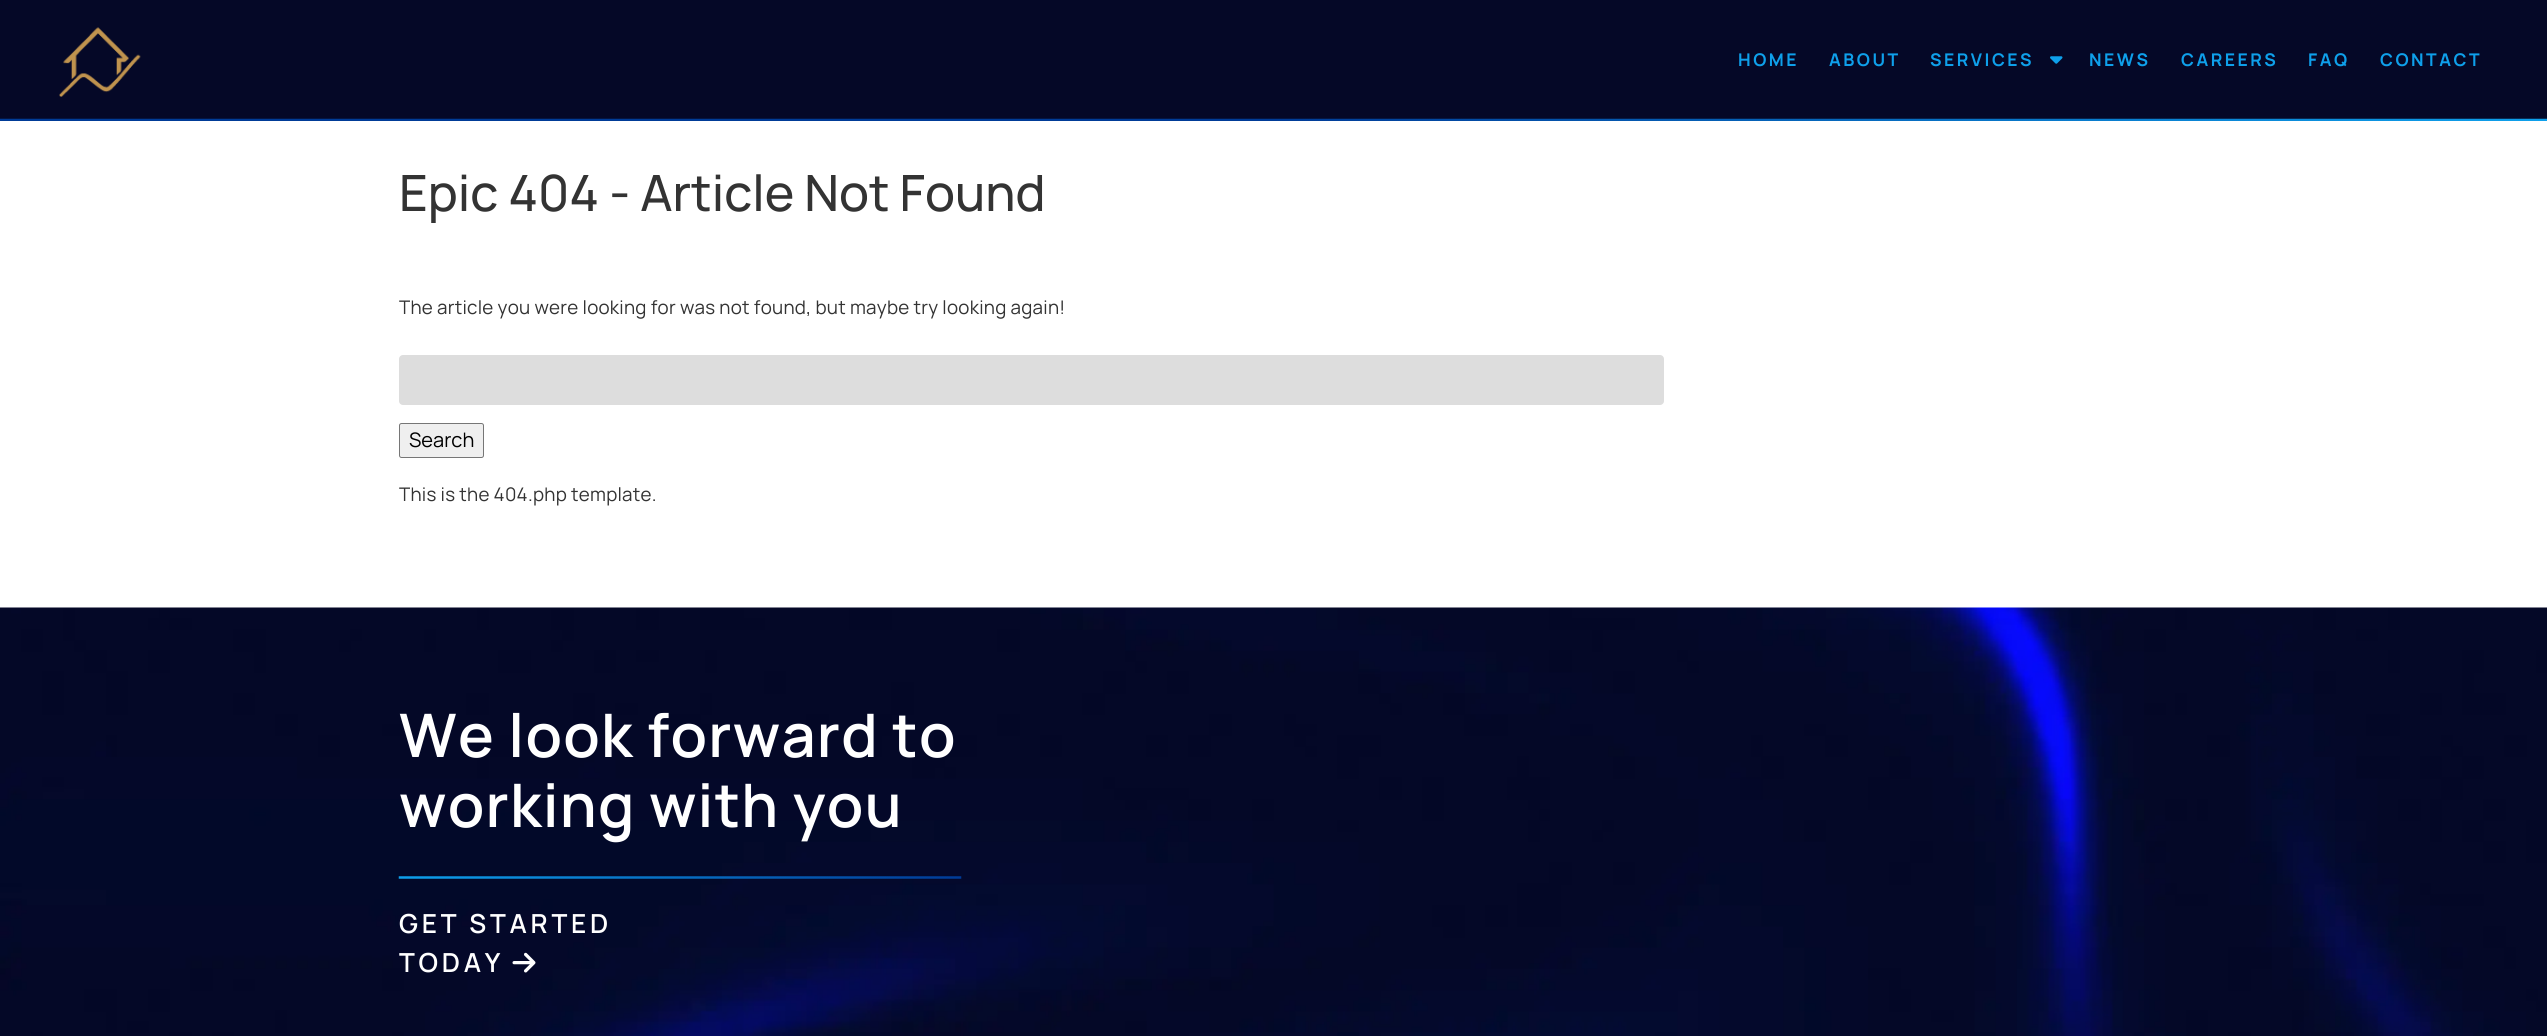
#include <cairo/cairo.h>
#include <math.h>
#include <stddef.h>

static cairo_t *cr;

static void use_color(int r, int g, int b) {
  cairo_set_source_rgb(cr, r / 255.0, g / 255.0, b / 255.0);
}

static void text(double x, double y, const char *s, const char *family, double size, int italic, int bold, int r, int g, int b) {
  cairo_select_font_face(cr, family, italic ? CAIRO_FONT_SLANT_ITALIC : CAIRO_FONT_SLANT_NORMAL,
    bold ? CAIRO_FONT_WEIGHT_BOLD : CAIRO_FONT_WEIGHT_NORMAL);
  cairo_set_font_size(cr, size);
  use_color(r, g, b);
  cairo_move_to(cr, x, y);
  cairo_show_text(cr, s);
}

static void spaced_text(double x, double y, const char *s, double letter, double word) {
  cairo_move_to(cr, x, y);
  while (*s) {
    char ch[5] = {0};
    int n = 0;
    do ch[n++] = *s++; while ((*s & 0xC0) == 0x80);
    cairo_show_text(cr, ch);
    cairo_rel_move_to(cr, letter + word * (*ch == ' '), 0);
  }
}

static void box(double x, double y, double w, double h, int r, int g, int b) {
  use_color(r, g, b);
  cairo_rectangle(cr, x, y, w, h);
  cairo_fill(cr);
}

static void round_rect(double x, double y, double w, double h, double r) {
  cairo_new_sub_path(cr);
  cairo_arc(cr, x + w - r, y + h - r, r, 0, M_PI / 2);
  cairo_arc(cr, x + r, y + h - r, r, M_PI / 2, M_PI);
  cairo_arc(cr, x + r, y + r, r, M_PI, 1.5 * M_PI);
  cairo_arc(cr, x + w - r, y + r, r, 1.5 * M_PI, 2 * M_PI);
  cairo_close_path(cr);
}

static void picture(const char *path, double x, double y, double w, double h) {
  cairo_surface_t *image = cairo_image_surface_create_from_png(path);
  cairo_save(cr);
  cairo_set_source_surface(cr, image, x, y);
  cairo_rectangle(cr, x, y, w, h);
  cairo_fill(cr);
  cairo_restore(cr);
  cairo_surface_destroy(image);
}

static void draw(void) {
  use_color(5, 8, 39);
  cairo_paint(cr);
  picture("img_01.png", 0, 118, 2547, 3);
  picture("img_02.png", 59, 27, 82, 70);
  picture("img_03.png", 2050, 56, 13, 8);
  box(0, 121, 2547, 487, 255, 255, 255);
  use_color(221, 221, 221);
  round_rect(399, 355, 1265, 50, 4);
  cairo_fill(cr);
  use_color(239, 239, 239);
  round_rect(399.5, 423.5, 84, 34, 2);
  cairo_fill_preserve(cr);
  use_color(118, 118, 118);
  cairo_set_line_width(cr, 1);
  cairo_stroke(cr);
  picture("img_04.png", 0, 607, 2547, 429);
  picture("img_05.png", 398, 876, 564, 3);
  picture("img_06.png", 512, 952, 24, 21);
  cairo_select_font_face(cr, "Manrope", CAIRO_FONT_SLANT_NORMAL, CAIRO_FONT_WEIGHT_BOLD);
  cairo_set_font_size(cr, 17.5);
  use_color(14, 160, 235);
  spaced_text(1738, 66, "HOME", 2.5, 0);
  spaced_text(1829, 66, "ABOUT", 2.5, 0);
  spaced_text(1930, 66, "SERVICES", 2.5, 0);
  spaced_text(2089, 66, "NEWS", 2.5, 0);
  spaced_text(2181, 66, "CAREERS", 2.5, 0);
  spaced_text(2308, 66, "FAQ", 2.5, 0);
  spaced_text(2380, 66, "CONTACT", 2.5, 0);
  text(399, 211, "Epic 404 - Article Not Found", "Manrope Medium", 50, 0, 0, 51, 51, 51);
  cairo_select_font_face(cr, "Manrope", CAIRO_FONT_SLANT_NORMAL, CAIRO_FONT_WEIGHT_NORMAL);
  cairo_set_font_size(cr, 18.75);
  spaced_text(399, 314, "The article you were looking for was not found, but maybe try looking again!", 0.25, 0);
  text(409, 447, "Search", "Manrope", 20, 0, 0, 0, 0, 0);
  cairo_set_font_size(cr, 18.75);
  use_color(51, 51, 51);
  spaced_text(399, 501, "This is the 404.php template.", 0.25, 0);
  cairo_select_font_face(cr, "Manrope SemiBold", CAIRO_FONT_SLANT_NORMAL, CAIRO_FONT_WEIGHT_NORMAL);
  cairo_set_font_size(cr, 60);
  use_color(255, 255, 255);
  spaced_text(399, 757, "We look forward to", 1.25, 0);
  spaced_text(399, 827, "working with you", 1.25, 0);
  cairo_set_font_size(cr, 26.25);
  spaced_text(399, 933, "GET STARTED", 3.75, 0);
  spaced_text(399, 972, "TODAY", 3.75, 0);
}

int main(void) {
  cairo_surface_t *surface = cairo_image_surface_create(CAIRO_FORMAT_RGB24, 2547, 1036);
  cr = cairo_create(surface);
  cairo_font_options_t *options = cairo_font_options_create();
  cairo_font_options_set_hint_metrics(options, CAIRO_HINT_METRICS_OFF);
  cairo_font_options_set_hint_style(options, CAIRO_HINT_STYLE_NONE);
  cairo_set_font_options(cr, options);
  cairo_set_miter_limit(cr, 4);
  draw();
  cairo_surface_write_to_png(surface, "out.png");
  cairo_font_options_destroy(options);
  cairo_destroy(cr);
  cairo_surface_destroy(surface);
  return 0;
}
